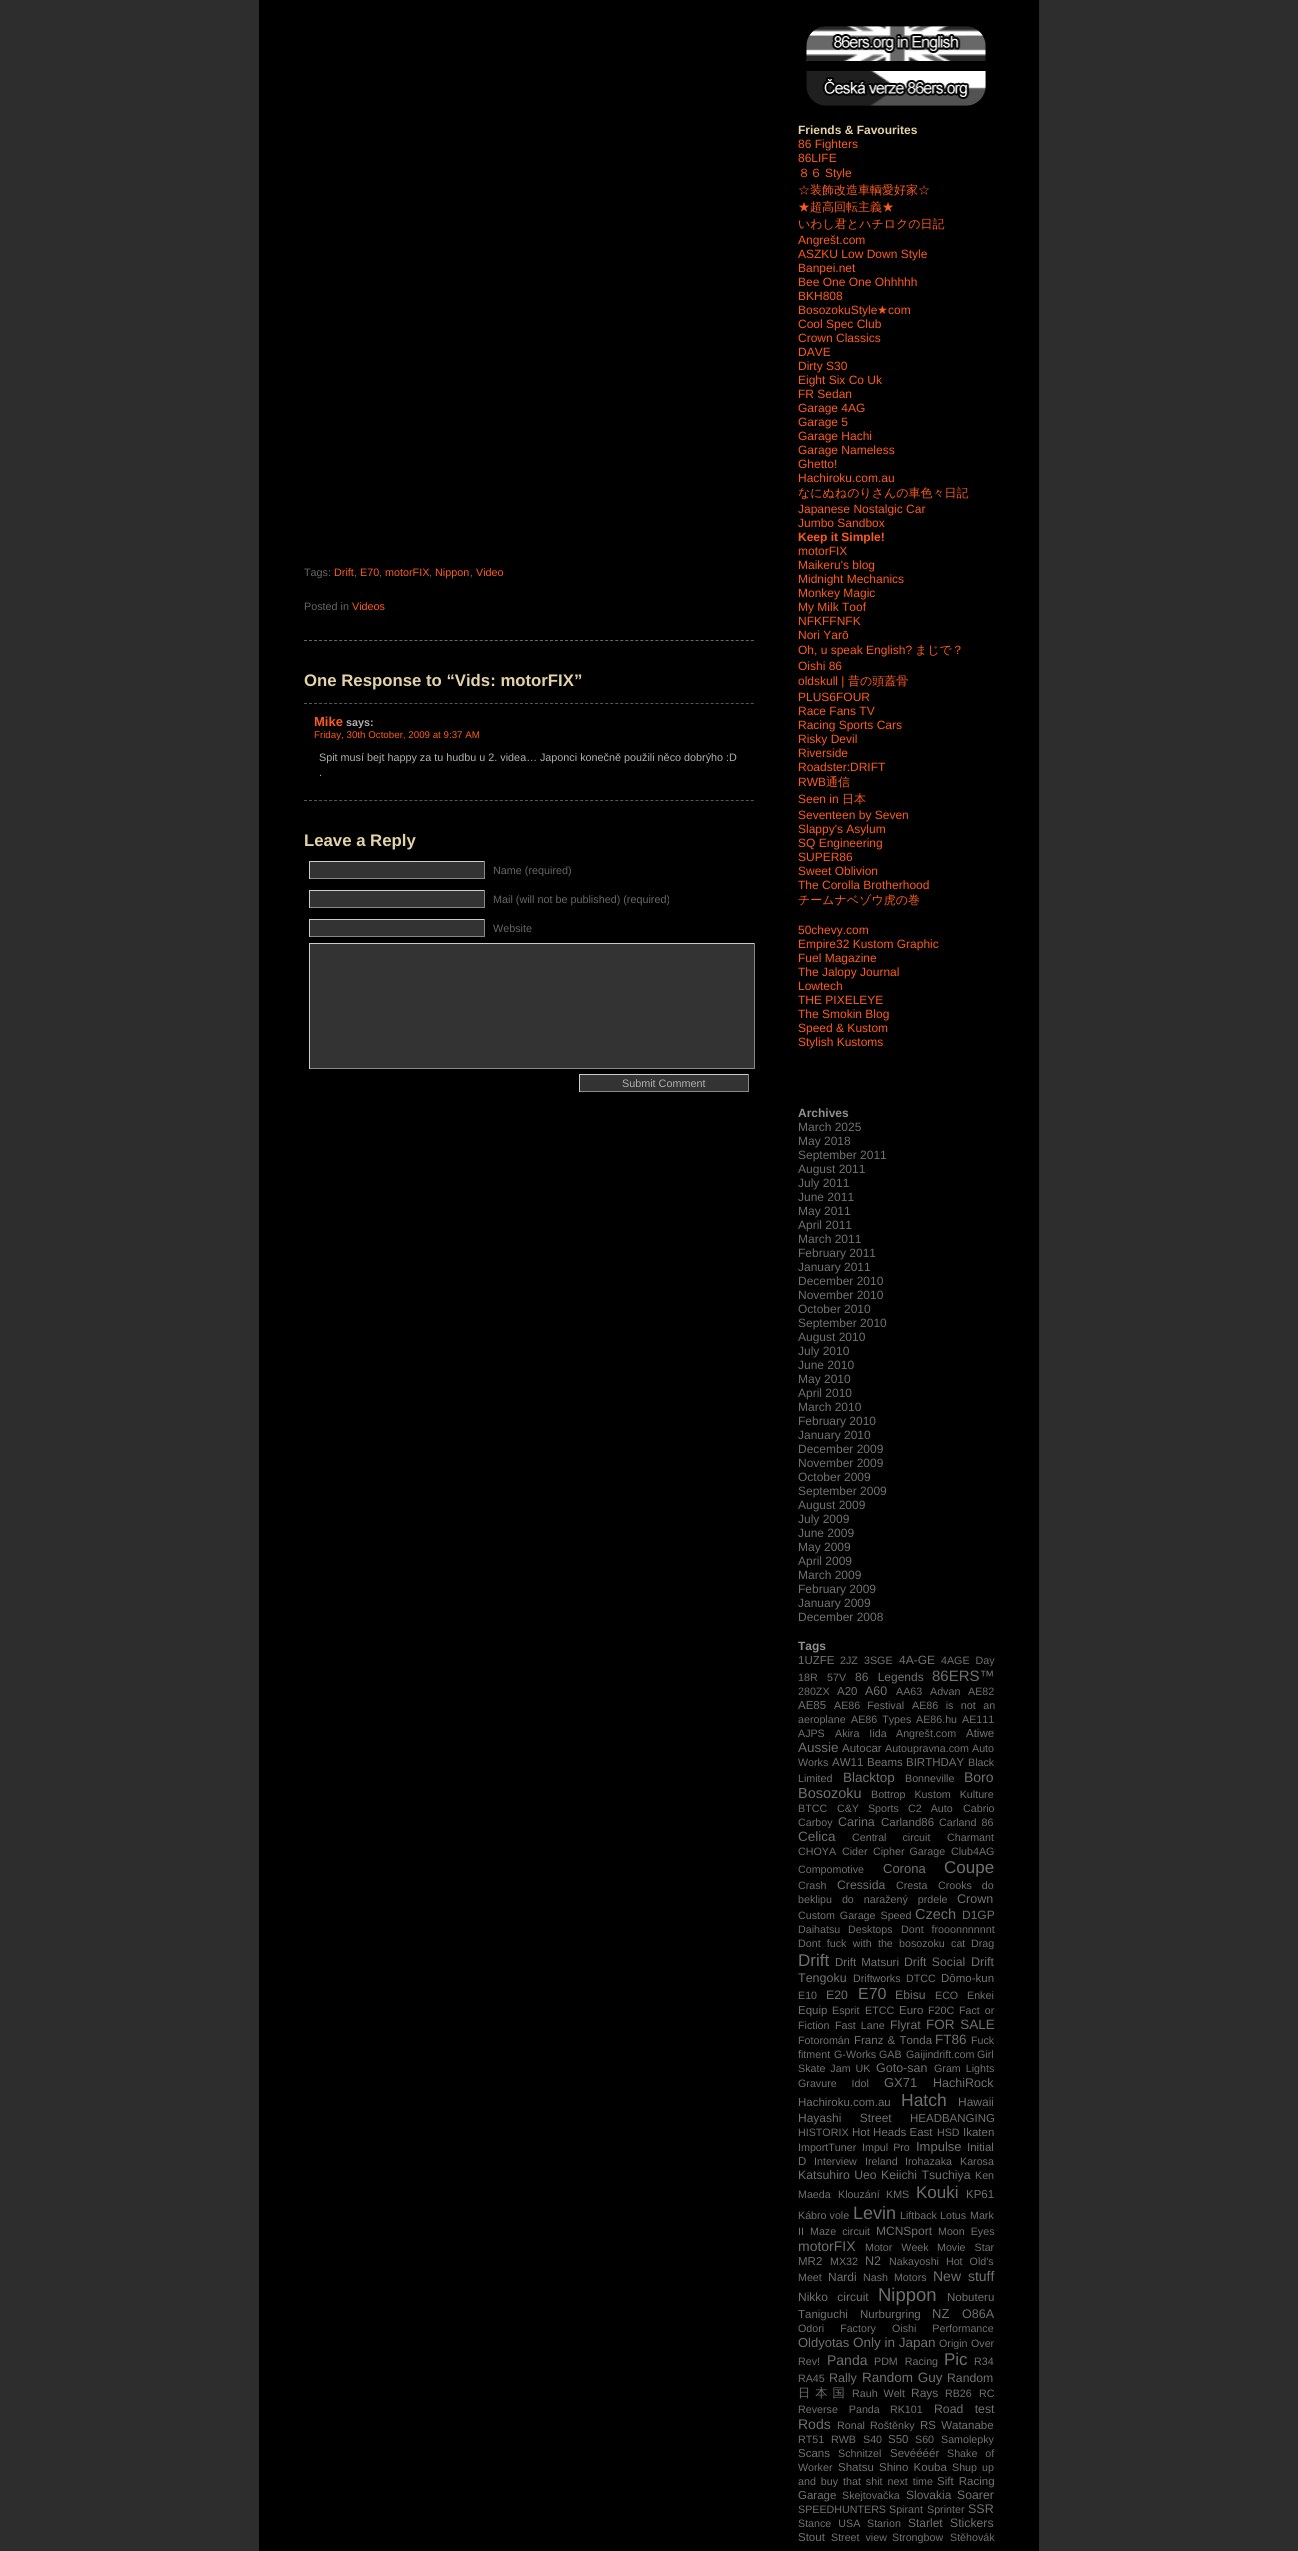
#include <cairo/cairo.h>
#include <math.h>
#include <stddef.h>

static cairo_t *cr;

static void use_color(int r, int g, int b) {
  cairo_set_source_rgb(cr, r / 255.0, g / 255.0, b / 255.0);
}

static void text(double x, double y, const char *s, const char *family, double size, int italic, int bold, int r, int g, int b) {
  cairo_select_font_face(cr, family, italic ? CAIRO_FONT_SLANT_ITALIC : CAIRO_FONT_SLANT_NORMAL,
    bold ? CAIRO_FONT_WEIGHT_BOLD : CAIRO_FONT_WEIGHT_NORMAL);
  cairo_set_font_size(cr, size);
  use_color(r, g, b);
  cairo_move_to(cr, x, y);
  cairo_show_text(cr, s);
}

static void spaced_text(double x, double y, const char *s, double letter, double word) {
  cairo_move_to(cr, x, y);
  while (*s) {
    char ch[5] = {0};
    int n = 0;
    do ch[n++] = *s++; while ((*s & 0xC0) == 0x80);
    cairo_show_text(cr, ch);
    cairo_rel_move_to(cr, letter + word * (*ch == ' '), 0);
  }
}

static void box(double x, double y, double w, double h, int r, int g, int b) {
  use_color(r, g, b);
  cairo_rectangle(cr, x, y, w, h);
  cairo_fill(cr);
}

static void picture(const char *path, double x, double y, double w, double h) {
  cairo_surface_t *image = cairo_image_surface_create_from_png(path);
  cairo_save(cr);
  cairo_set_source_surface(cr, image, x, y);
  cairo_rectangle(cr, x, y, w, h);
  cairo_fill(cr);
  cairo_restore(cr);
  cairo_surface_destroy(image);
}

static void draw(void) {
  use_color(45, 45, 45);
  cairo_paint(cr);
  box(259, 0, 780, 2551, 0, 0, 0);
  cairo_new_path(cr);
  cairo_move_to(cr, 304, 640.5);
  cairo_line_to(cr, 754, 640.5);
  use_color(102, 102, 102);
  cairo_set_line_width(cr, 1);
  cairo_set_dash(cr, (double[]){3, 2.02}, 2, 0);
  cairo_stroke(cr);
  cairo_new_path(cr);
  cairo_move_to(cr, 304, 703.5);
  cairo_line_to(cr, 754, 703.5);
  use_color(85, 85, 85);
  cairo_stroke(cr);
  cairo_new_path(cr);
  cairo_move_to(cr, 304, 800.5);
  cairo_line_to(cr, 754, 800.5);
  cairo_stroke(cr);
  box(310, 862, 174, 16, 51, 51, 51);
  box(309, 861, 176, 1, 204, 204, 204);
  box(484, 861, 1, 18, 136, 136, 136);
  box(309, 878, 176, 1, 136, 136, 136);
  box(309, 861, 1, 18, 204, 204, 204);
  box(310, 891, 174, 16, 51, 51, 51);
  box(309, 890, 176, 1, 204, 204, 204);
  box(484, 890, 1, 18, 136, 136, 136);
  box(309, 907, 176, 1, 136, 136, 136);
  box(309, 890, 1, 18, 204, 204, 204);
  box(310, 920, 174, 16, 51, 51, 51);
  box(309, 919, 176, 1, 204, 204, 204);
  box(484, 919, 1, 18, 136, 136, 136);
  box(309, 936, 176, 1, 136, 136, 136);
  box(309, 919, 1, 18, 204, 204, 204);
  box(310, 944, 444, 124, 51, 51, 51);
  box(309, 943, 446, 1, 204, 204, 204);
  box(754, 943, 1, 126, 136, 136, 136);
  box(309, 1068, 446, 1, 136, 136, 136);
  box(309, 943, 1, 126, 204, 204, 204);
  box(580, 1075, 168, 16, 51, 51, 51);
  box(579, 1074, 170, 1, 204, 204, 204);
  box(748, 1074, 1, 18, 136, 136, 136);
  box(579, 1091, 170, 1, 136, 136, 136);
  box(579, 1074, 1, 18, 204, 204, 204);
  picture("img_01.png", 806, 26, 180, 35);
  picture("img_02.png", 806, 71, 180, 35);
  text(304, 576, "Tags:", "Liberation Sans", 10.8, 0, 0, 102, 102, 102);
  text(334, 576, "Drift", "Liberation Sans", 10.8, 0, 0, 253, 90, 30);
  text(354, 576, ",", "Liberation Sans", 10.8, 0, 0, 102, 102, 102);
  text(360, 576, "E70", "Liberation Sans", 10.8, 0, 0, 253, 90, 30);
  text(379, 576, ",", "Liberation Sans", 10.8, 0, 0, 102, 102, 102);
  text(385, 576, "motorFIX", "Liberation Sans", 10.8, 0, 0, 253, 90, 30);
  text(429, 576, ",", "Liberation Sans", 10.8, 0, 0, 102, 102, 102);
  text(435, 576, "Nippon", "Liberation Sans", 10.8, 0, 0, 253, 90, 30);
  text(470, 576, ",", "Liberation Sans", 10.8, 0, 0, 102, 102, 102);
  text(476, 576, "Video", "Liberation Sans", 10.8, 0, 0, 253, 90, 30);
  text(304, 610, "Posted in", "Liberation Sans", 10.8, 0, 0, 102, 102, 102);
  text(352, 610, "Videos", "Liberation Sans", 10.8, 0, 0, 253, 90, 30);
  text(304, 686, "One Response to “Vids: motorFIX”", "Liberation Sans", 16.75, 0, 1, 228, 211, 166);
  text(314, 726, "Mike", "Liberation Sans", 13, 0, 1, 253, 90, 30);
  text(346, 726, "says:", "Liberation Sans", 10.8, 0, 1, 176, 176, 176);
  text(314, 738, "Friday, 30th October, 2009 at 9:37 AM", "Liberation Sans", 9.75, 0, 0, 253, 90, 30);
  text(319, 761, "Spit musí bejt happy za tu hudbu u 2. videa… Japonci konečně použili něco dobrýho :D", "Liberation Sans", 10.8, 0, 0, 176, 176, 176);
  text(319, 776, ".", "Liberation Sans", 10.8, 0, 0, 176, 176, 176);
  text(304, 846, "Leave a Reply", "Liberation Sans", 16.75, 0, 1, 228, 211, 166);
  text(493, 874, "Name (required)", "Liberation Sans", 10.8, 0, 0, 102, 102, 102);
  text(493, 903, "Mail (will not be published) (required)", "Liberation Sans", 10.8, 0, 0, 102, 102, 102);
  text(493, 932, "Website", "Liberation Sans", 10.8, 0, 0, 102, 102, 102);
  text(622, 1087, "Submit Comment", "Liberation Sans", 10.8, 0, 0, 176, 176, 176);
  text(798, 134, "Friends & Favourites", "Liberation Sans", 12, 0, 1, 228, 211, 166);
  text(798, 148, "86 Fighters", "Liberation Sans", 12, 0, 0, 253, 90, 30);
  text(798, 162, "86LIFE", "Liberation Sans", 12, 0, 0, 253, 90, 30);
  text(798, 177, "８６", "WenQuanYi Zen Hei Medium", 12, 0, 0, 253, 90, 30);
  text(825, 177, "Style", "Liberation Sans", 12, 0, 0, 253, 90, 30);
  text(798, 194, "☆装飾改造車輌愛好家☆", "WenQuanYi Zen Hei Medium", 12, 0, 0, 253, 90, 30);
  text(798, 211, "★超高回転主義★", "WenQuanYi Zen Hei Medium", 12, 0, 0, 253, 90, 30);
  text(798, 228, "いわし君とハチロクの日記", "WenQuanYi Zen Hei Medium", 12, 0, 0, 253, 90, 30);
  text(798, 244, "Angrešt.com", "Liberation Sans", 12, 0, 0, 253, 90, 30);
  text(798, 258, "ASZKU Low Down Style", "Liberation Sans", 12, 0, 0, 253, 90, 30);
  text(798, 272, "Banpei.net", "Liberation Sans", 12, 0, 0, 253, 90, 30);
  text(798, 286, "Bee One One Ohhhhh", "Liberation Sans", 12, 0, 0, 253, 90, 30);
  text(798, 300, "BKH808", "Liberation Sans", 12, 0, 0, 253, 90, 30);
  text(798, 314, "BosozokuStyle", "Liberation Sans", 12, 0, 0, 253, 90, 30);
  text(877, 314, "★", "DejaVu Sans", 12, 0, 0, 253, 90, 30);
  text(888, 314, "com", "Liberation Sans", 12, 0, 0, 253, 90, 30);
  text(798, 328, "Cool Spec Club", "Liberation Sans", 12, 0, 0, 253, 90, 30);
  text(798, 342, "Crown Classics", "Liberation Sans", 12, 0, 0, 253, 90, 30);
  text(798, 356, "DAVE", "Liberation Sans", 12, 0, 0, 253, 90, 30);
  text(798, 370, "Dirty S30", "Liberation Sans", 12, 0, 0, 253, 90, 30);
  text(798, 384, "Eight Six Co Uk", "Liberation Sans", 12, 0, 0, 253, 90, 30);
  text(798, 398, "FR Sedan", "Liberation Sans", 12, 0, 0, 253, 90, 30);
  text(798, 412, "Garage 4AG", "Liberation Sans", 12, 0, 0, 253, 90, 30);
  text(798, 426, "Garage 5", "Liberation Sans", 12, 0, 0, 253, 90, 30);
  text(798, 440, "Garage Hachi", "Liberation Sans", 12, 0, 0, 253, 90, 30);
  text(798, 454, "Garage Nameless", "Liberation Sans", 12, 0, 0, 253, 90, 30);
  text(798, 468, "Ghetto!", "Liberation Sans", 12, 0, 0, 253, 90, 30);
  text(798, 482, "Hachiroku.com.au", "Liberation Sans", 12, 0, 0, 253, 90, 30);
  text(798, 497, "なにぬねのりさんの車色々日記", "WenQuanYi Zen Hei Medium", 12, 0, 0, 253, 90, 30);
  text(798, 513, "Japanese Nostalgic Car", "Liberation Sans", 12, 0, 0, 253, 90, 30);
  text(798, 527, "Jumbo Sandbox", "Liberation Sans", 12, 0, 0, 253, 90, 30);
  text(798, 541, "Keep it Simple!", "Liberation Sans", 12, 0, 1, 253, 90, 30);
  text(798, 555, "motorFIX", "Liberation Sans", 12, 0, 0, 253, 90, 30);
  text(798, 569, "Maikeru's blog", "Liberation Sans", 12, 0, 0, 253, 90, 30);
  text(798, 583, "Midnight Mechanics", "Liberation Sans", 12, 0, 0, 253, 90, 30);
  text(798, 597, "Monkey Magic", "Liberation Sans", 12, 0, 0, 253, 90, 30);
  text(798, 611, "My Milk Toof", "Liberation Sans", 12, 0, 0, 253, 90, 30);
  text(798, 625, "NFKFFNFK", "Liberation Sans", 12, 0, 0, 253, 90, 30);
  text(798, 639, "Nori Yarō", "Liberation Sans", 12, 0, 0, 253, 90, 30);
  text(798, 654, "Oh, u speak English?", "Liberation Sans", 12, 0, 0, 253, 90, 30);
  text(915, 654, "まじで？", "WenQuanYi Zen Hei Medium", 12, 0, 0, 253, 90, 30);
  text(798, 670, "Oishi 86", "Liberation Sans", 12, 0, 0, 253, 90, 30);
  text(798, 685, "oldskull |", "Liberation Sans", 12, 0, 0, 253, 90, 30);
  text(848, 685, "昔の頭蓋骨", "WenQuanYi Zen Hei Medium", 12, 0, 0, 253, 90, 30);
  text(798, 701, "PLUS6FOUR", "Liberation Sans", 12, 0, 0, 253, 90, 30);
  text(798, 715, "Race Fans TV", "Liberation Sans", 12, 0, 0, 253, 90, 30);
  text(798, 729, "Racing Sports Cars", "Liberation Sans", 12, 0, 0, 253, 90, 30);
  text(798, 743, "Risky Devil", "Liberation Sans", 12, 0, 0, 253, 90, 30);
  text(798, 757, "Riverside", "Liberation Sans", 12, 0, 0, 253, 90, 30);
  text(798, 771, "Roadster:DRIFT", "Liberation Sans", 12, 0, 0, 253, 90, 30);
  text(798, 786, "RWB", "Liberation Sans", 12, 0, 0, 253, 90, 30);
  text(826, 786, "通信", "WenQuanYi Zen Hei Medium", 12, 0, 0, 253, 90, 30);
  text(798, 803, "Seen in", "Liberation Sans", 12, 0, 0, 253, 90, 30);
  text(842, 803, "日本", "WenQuanYi Zen Hei Medium", 12, 0, 0, 253, 90, 30);
  text(798, 819, "Seventeen by Seven", "Liberation Sans", 12, 0, 0, 253, 90, 30);
  text(798, 833, "Slappy's Asylum", "Liberation Sans", 12, 0, 0, 253, 90, 30);
  text(798, 847, "SQ Engineering", "Liberation Sans", 12, 0, 0, 253, 90, 30);
  text(798, 861, "SUPER86", "Liberation Sans", 12, 0, 0, 253, 90, 30);
  text(798, 875, "Sweet Oblivion", "Liberation Sans", 12, 0, 0, 253, 90, 30);
  text(798, 889, "The Corolla Brotherhood", "Liberation Sans", 12, 0, 0, 253, 90, 30);
  text(798, 904, "チームナベゾウ虎の巻", "WenQuanYi Zen Hei Medium", 12, 0, 0, 253, 90, 30);
  text(798, 934, "50chevy.com", "Liberation Sans", 12, 0, 0, 253, 90, 30);
  text(798, 948, "Empire32 Kustom Graphic", "Liberation Sans", 12, 0, 0, 253, 90, 30);
  text(798, 962, "Fuel Magazine", "Liberation Sans", 12, 0, 0, 253, 90, 30);
  text(798, 976, "The Jalopy Journal", "Liberation Sans", 12, 0, 0, 253, 90, 30);
  text(798, 990, "Lowtech", "Liberation Sans", 12, 0, 0, 253, 90, 30);
  text(798, 1004, "THE PIXELEYE", "Liberation Sans", 12, 0, 0, 253, 90, 30);
  text(798, 1018, "The Smokin Blog", "Liberation Sans", 12, 0, 0, 253, 90, 30);
  text(798, 1032, "Speed & Kustom", "Liberation Sans", 12, 0, 0, 253, 90, 30);
  text(798, 1046, "Stylish Kustoms", "Liberation Sans", 12, 0, 0, 253, 90, 30);
  text(798, 1117, "Archives", "Liberation Sans", 12, 0, 1, 144, 144, 144);
  text(798, 1131, "March 2025", "Liberation Sans", 12, 0, 0, 112, 112, 112);
  text(798, 1145, "May 2018", "Liberation Sans", 12, 0, 0, 112, 112, 112);
  text(798, 1159, "September 2011", "Liberation Sans", 12, 0, 0, 112, 112, 112);
  text(798, 1173, "August 2011", "Liberation Sans", 12, 0, 0, 112, 112, 112);
  text(798, 1187, "July 2011", "Liberation Sans", 12, 0, 0, 112, 112, 112);
  text(798, 1201, "June 2011", "Liberation Sans", 12, 0, 0, 112, 112, 112);
  text(798, 1215, "May 2011", "Liberation Sans", 12, 0, 0, 112, 112, 112);
  text(798, 1229, "April 2011", "Liberation Sans", 12, 0, 0, 112, 112, 112);
  text(798, 1243, "March 2011", "Liberation Sans", 12, 0, 0, 112, 112, 112);
  text(798, 1257, "February 2011", "Liberation Sans", 12, 0, 0, 112, 112, 112);
  text(798, 1271, "January 2011", "Liberation Sans", 12, 0, 0, 112, 112, 112);
  text(798, 1285, "December 2010", "Liberation Sans", 12, 0, 0, 112, 112, 112);
  text(798, 1299, "November 2010", "Liberation Sans", 12, 0, 0, 112, 112, 112);
  text(798, 1313, "October 2010", "Liberation Sans", 12, 0, 0, 112, 112, 112);
  text(798, 1327, "September 2010", "Liberation Sans", 12, 0, 0, 112, 112, 112);
  text(798, 1341, "August 2010", "Liberation Sans", 12, 0, 0, 112, 112, 112);
  text(798, 1355, "July 2010", "Liberation Sans", 12, 0, 0, 112, 112, 112);
  text(798, 1369, "June 2010", "Liberation Sans", 12, 0, 0, 112, 112, 112);
  text(798, 1383, "May 2010", "Liberation Sans", 12, 0, 0, 112, 112, 112);
  text(798, 1397, "April 2010", "Liberation Sans", 12, 0, 0, 112, 112, 112);
  text(798, 1411, "March 2010", "Liberation Sans", 12, 0, 0, 112, 112, 112);
  text(798, 1425, "February 2010", "Liberation Sans", 12, 0, 0, 112, 112, 112);
  text(798, 1439, "January 2010", "Liberation Sans", 12, 0, 0, 112, 112, 112);
  text(798, 1453, "December 2009", "Liberation Sans", 12, 0, 0, 112, 112, 112);
  text(798, 1467, "November 2009", "Liberation Sans", 12, 0, 0, 112, 112, 112);
  text(798, 1481, "October 2009", "Liberation Sans", 12, 0, 0, 112, 112, 112);
  text(798, 1495, "September 2009", "Liberation Sans", 12, 0, 0, 112, 112, 112);
  text(798, 1509, "August 2009", "Liberation Sans", 12, 0, 0, 112, 112, 112);
  text(798, 1523, "July 2009", "Liberation Sans", 12, 0, 0, 112, 112, 112);
  text(798, 1537, "June 2009", "Liberation Sans", 12, 0, 0, 112, 112, 112);
  text(798, 1551, "May 2009", "Liberation Sans", 12, 0, 0, 112, 112, 112);
  text(798, 1565, "April 2009", "Liberation Sans", 12, 0, 0, 112, 112, 112);
  text(798, 1579, "March 2009", "Liberation Sans", 12, 0, 0, 112, 112, 112);
  text(798, 1593, "February 2009", "Liberation Sans", 12, 0, 0, 112, 112, 112);
  text(798, 1607, "January 2009", "Liberation Sans", 12, 0, 0, 112, 112, 112);
  text(798, 1621, "December 2008", "Liberation Sans", 12, 0, 0, 112, 112, 112);
  text(798, 1650, "Tags", "Liberation Sans", 12, 0, 1, 144, 144, 144);
  text(798, 1664, "1UZFE", "Liberation Sans", 11.5, 0, 0, 112, 112, 112);
  text(840, 1664, "2JZ", "Liberation Sans", 10.7, 0, 0, 112, 112, 112);
  text(864, 1664, "3SGE", "Liberation Sans", 10.7, 0, 0, 112, 112, 112);
  text(899, 1664, "4A-GE", "Liberation Sans", 12, 0, 0, 112, 112, 112);
  cairo_set_font_size(cr, 10.7);
  spaced_text(941, 1664, "4AGE Day", 0, 3);
  text(798, 1681, "18R", "Liberation Sans", 10.7, 0, 0, 112, 112, 112);
  text(827, 1681, "57V", "Liberation Sans", 10.7, 0, 0, 112, 112, 112);
  cairo_set_font_size(cr, 12);
  spaced_text(855, 1681, "86 Legends", 0, 6);
  text(932, 1681, "86ERS™", "Liberation Sans", 15, 0, 0, 112, 112, 112);
  text(798, 1695, "280ZX", "Liberation Sans", 10.7, 0, 0, 112, 112, 112);
  text(837, 1695, "A20", "Liberation Sans", 11.5, 0, 0, 112, 112, 112);
  text(865, 1695, "A60", "Liberation Sans", 12.5, 0, 0, 112, 112, 112);
  text(896, 1695, "AA63", "Liberation Sans", 10.7, 0, 0, 112, 112, 112);
  text(930, 1695, "Advan", "Liberation Sans", 10.7, 0, 0, 112, 112, 112);
  text(968, 1695, "AE82", "Liberation Sans", 10.7, 0, 0, 112, 112, 112);
  text(798, 1709, "AE85", "Liberation Sans", 11.5, 0, 0, 112, 112, 112);
  cairo_set_font_size(cr, 10.7);
  spaced_text(834, 1709, "AE86 Festival", 0, 4);
  spaced_text(912, 1709, "AE86 is not an", 0, 4.5);
  text(798, 1723, "aeroplane", "Liberation Sans", 10.7, 0, 0, 112, 112, 112);
  spaced_text(851, 1723, "AE86 Types", 0, 2);
  text(916, 1723, "AE86.hu", "Liberation Sans", 10.7, 0, 0, 112, 112, 112);
  text(962, 1723, "AE111", "Liberation Sans", 10.7, 0, 0, 112, 112, 112);
  text(798, 1737, "AJPS", "Liberation Sans", 10.7, 0, 0, 112, 112, 112);
  spaced_text(835, 1737, "Akira Iida", 0, 7);
  text(896, 1737, "Angrešt.com", "Liberation Sans", 10.7, 0, 0, 112, 112, 112);
  text(966, 1737, "Atiwe", "Liberation Sans", 11.5, 0, 0, 112, 112, 112);
  text(798, 1752, "Aussie", "Liberation Sans", 13.5, 0, 0, 112, 112, 112);
  text(842, 1752, "Autocar", "Liberation Sans", 11.5, 0, 0, 112, 112, 112);
  text(885, 1752, "Autoupravna.com", "Liberation Sans", 10.7, 0, 0, 112, 112, 112);
  text(972, 1752, "Auto", "Liberation Sans", 10.7, 0, 0, 112, 112, 112);
  text(798, 1766, "Works", "Liberation Sans", 10.7, 0, 0, 112, 112, 112);
  text(832, 1766, "AW11", "Liberation Sans", 11.5, 0, 0, 112, 112, 112);
  text(867, 1766, "Beams", "Liberation Sans", 11.5, 0, 0, 112, 112, 112);
  text(906, 1766, "BIRTHDAY", "Liberation Sans", 11.5, 0, 0, 112, 112, 112);
  text(968, 1766, "Black", "Liberation Sans", 10.7, 0, 0, 112, 112, 112);
  text(798, 1782, "Limited", "Liberation Sans", 10.7, 0, 0, 112, 112, 112);
  text(843, 1782, "Blacktop", "Liberation Sans", 13.5, 0, 0, 112, 112, 112);
  text(905, 1782, "Bonneville", "Liberation Sans", 10.7, 0, 0, 112, 112, 112);
  text(964, 1782, "Boro", "Liberation Sans", 14, 0, 0, 112, 112, 112);
  text(798, 1798, "Bosozoku", "Liberation Sans", 14.5, 0, 0, 112, 112, 112);
  cairo_set_font_size(cr, 10.7);
  spaced_text(871, 1798, "Bottrop Kustom Kulture", 0, 6);
  text(798, 1812, "BTCC", "Liberation Sans", 10.7, 0, 0, 112, 112, 112);
  spaced_text(837, 1812, "C&Y Sports", 0, 6);
  spaced_text(908, 1812, "C2 Auto", 0, 6);
  text(963, 1812, "Cabrio", "Liberation Sans", 10.7, 0, 0, 112, 112, 112);
  text(798, 1826, "Carboy", "Liberation Sans", 10.7, 0, 0, 112, 112, 112);
  text(838, 1826, "Carina", "Liberation Sans", 12.5, 0, 0, 112, 112, 112);
  text(881, 1826, "Carland86", "Liberation Sans", 11.5, 0, 0, 112, 112, 112);
  cairo_set_font_size(cr, 10.7);
  spaced_text(939, 1826, "Carland 86", 0, 2);
  text(798, 1841, "Celica", "Liberation Sans", 13.5, 0, 0, 112, 112, 112);
  cairo_set_font_size(cr, 10.7);
  spaced_text(852, 1841, "Central circuit", 0, 13);
  text(947, 1841, "Charmant", "Liberation Sans", 10.7, 0, 0, 112, 112, 112);
  text(798, 1855, "CHOYA", "Liberation Sans", 10.7, 0, 0, 112, 112, 112);
  text(842, 1855, "Cider", "Liberation Sans", 10.7, 0, 0, 112, 112, 112);
  spaced_text(873, 1855, "Cipher Garage", 0, 2);
  text(951, 1855, "Club4AG", "Liberation Sans", 10.7, 0, 0, 112, 112, 112);
  text(798, 1873, "Compomotive", "Liberation Sans", 10.7, 0, 0, 112, 112, 112);
  text(883, 1873, "Corona", "Liberation Sans", 13, 0, 0, 112, 112, 112);
  text(944, 1873, "Coupe", "Liberation Sans", 17, 0, 0, 112, 112, 112);
  text(798, 1889, "Crash", "Liberation Sans", 10.7, 0, 0, 112, 112, 112);
  text(837, 1889, "Cressida", "Liberation Sans", 12.25, 0, 0, 112, 112, 112);
  text(896, 1889, "Cresta", "Liberation Sans", 10.7, 0, 0, 112, 112, 112);
  spaced_text(938, 1889, "Crooks do", 0, 7);
  spaced_text(798, 1903, "beklipu do naražený prdele", 0, 7);
  text(957, 1903, "Crown", "Liberation Sans", 12.5, 0, 0, 112, 112, 112);
  cairo_set_font_size(cr, 10.7);
  spaced_text(798, 1919, "Custom Garage Speed", 0, 2);
  text(915, 1919, "Czech", "Liberation Sans", 14.5, 0, 0, 112, 112, 112);
  text(962, 1919, "D1GP", "Liberation Sans", 12, 0, 0, 112, 112, 112);
  text(798, 1933, "Daihatsu", "Liberation Sans", 10.7, 0, 0, 112, 112, 112);
  text(848, 1933, "Desktops", "Liberation Sans", 10.7, 0, 0, 112, 112, 112);
  spaced_text(901, 1933, "Dont frooonnnnnnt", 0, 5);
  spaced_text(798, 1947, "Dont fuck with the bosozoku cat", 0, 3.25);
  text(971, 1947, "Drag", "Liberation Sans", 10.7, 0, 0, 112, 112, 112);
  text(798, 1966, "Drift", "Liberation Sans", 17, 0, 0, 112, 112, 112);
  cairo_set_font_size(cr, 11.5);
  spaced_text(835, 1966, "Drift Matsuri", 0, 2);
  cairo_set_font_size(cr, 12.25);
  spaced_text(904, 1966, "Drift Social", 0, 2);
  text(971, 1966, "Drift", "Liberation Sans", 12.5, 0, 0, 112, 112, 112);
  text(798, 1982, "Tengoku", "Liberation Sans", 12.5, 0, 0, 112, 112, 112);
  text(853, 1982, "Driftworks", "Liberation Sans", 10.7, 0, 0, 112, 112, 112);
  text(906, 1982, "DTCC", "Liberation Sans", 10.7, 0, 0, 112, 112, 112);
  text(941, 1982, "Dōmo-kun", "Liberation Sans", 11.5, 0, 0, 112, 112, 112);
  text(798, 1999, "E10", "Liberation Sans", 10.7, 0, 0, 112, 112, 112);
  text(826, 1999, "E20", "Liberation Sans", 12.25, 0, 0, 112, 112, 112);
  text(858, 1999, "E70", "Liberation Sans", 16, 0, 0, 112, 112, 112);
  text(895, 1999, "Ebisu", "Liberation Sans", 12.25, 0, 0, 112, 112, 112);
  text(935, 1999, "ECO", "Liberation Sans", 10.7, 0, 0, 112, 112, 112);
  text(967, 1999, "Enkei", "Liberation Sans", 10.7, 0, 0, 112, 112, 112);
  text(798, 2014, "Equip", "Liberation Sans", 11.5, 0, 0, 112, 112, 112);
  text(832, 2014, "Esprit", "Liberation Sans", 10.7, 0, 0, 112, 112, 112);
  text(865, 2014, "ETCC", "Liberation Sans", 10.7, 0, 0, 112, 112, 112);
  text(899, 2014, "Euro", "Liberation Sans", 11.5, 0, 0, 112, 112, 112);
  text(928, 2014, "F20C", "Liberation Sans", 10.7, 0, 0, 112, 112, 112);
  spaced_text(959, 2014, "Fact or", 0, 2);
  text(798, 2029, "Fiction", "Liberation Sans", 10.7, 0, 0, 112, 112, 112);
  spaced_text(835, 2029, "Fast Lane", 0, 2);
  text(890, 2029, "Flyrat", "Liberation Sans", 12.25, 0, 0, 112, 112, 112);
  cairo_set_font_size(cr, 13.5);
  spaced_text(926, 2029, "FOR SALE", 0, 2);
  text(798, 2044, "Fotoromán", "Liberation Sans", 10.7, 0, 0, 112, 112, 112);
  cairo_set_font_size(cr, 11.5);
  spaced_text(854, 2044, "Franz & Tonda", 0, 1);
  text(935, 2044, "FT86", "Liberation Sans", 13.5, 0, 0, 112, 112, 112);
  text(971, 2044, "Fuck", "Liberation Sans", 10.7, 0, 0, 112, 112, 112);
  text(798, 2058, "fitment", "Liberation Sans", 10.7, 0, 0, 112, 112, 112);
  text(834, 2058, "G-Works", "Liberation Sans", 10.7, 0, 0, 112, 112, 112);
  text(879, 2058, "GAB", "Liberation Sans", 10.7, 0, 0, 112, 112, 112);
  text(906, 2058, "Gaijindrift.com", "Liberation Sans", 10.7, 0, 0, 112, 112, 112);
  text(977, 2058, "Girl", "Liberation Sans", 10.7, 0, 0, 112, 112, 112);
  spaced_text(798, 2072, "Skate Jam UK", 0, 2);
  text(876, 2072, "Goto-san", "Liberation Sans", 12.5, 0, 0, 112, 112, 112);
  cairo_set_font_size(cr, 10.7);
  spaced_text(934, 2072, "Gram Lights", 0, 2);
  spaced_text(798, 2087, "Gravure Idol", 0, 12);
  text(884, 2087, "GX71", "Liberation Sans", 13, 0, 0, 112, 112, 112);
  text(933, 2087, "HachiRock", "Liberation Sans", 12.5, 0, 0, 112, 112, 112);
  text(798, 2106, "Hachiroku.com.au", "Liberation Sans", 11.5, 0, 0, 112, 112, 112);
  text(901, 2106, "Hatch", "Liberation Sans", 17.5, 0, 0, 112, 112, 112);
  text(958, 2106, "Hawaii", "Liberation Sans", 12, 0, 0, 112, 112, 112);
  spaced_text(798, 2122, "Hayashi Street", 0, 15);
  text(910, 2122, "HEADBANGING", "Liberation Sans", 11.5, 0, 0, 112, 112, 112);
  text(798, 2136, "HISTORIX", "Liberation Sans", 10.7, 0, 0, 112, 112, 112);
  text(852, 2136, "Hot Heads East", "Liberation Sans", 11.5, 0, 0, 112, 112, 112);
  text(937, 2136, "HSD", "Liberation Sans", 10.7, 0, 0, 112, 112, 112);
  text(963, 2136, "Ikaten", "Liberation Sans", 11.5, 0, 0, 112, 112, 112);
  text(798, 2151, "ImportTuner", "Liberation Sans", 10.7, 0, 0, 112, 112, 112);
  spaced_text(862, 2151, "Impul Pro", 0, 2);
  text(916, 2151, "Impulse", "Liberation Sans", 13, 0, 0, 112, 112, 112);
  text(967, 2151, "Initial", "Liberation Sans", 11.5, 0, 0, 112, 112, 112);
  text(798, 2165, "D", "Liberation Sans", 11.5, 0, 0, 112, 112, 112);
  text(814, 2165, "Interview", "Liberation Sans", 10.7, 0, 0, 112, 112, 112);
  text(865, 2165, "Ireland", "Liberation Sans", 10.7, 0, 0, 112, 112, 112);
  text(905, 2165, "Irohazaka", "Liberation Sans", 10.7, 0, 0, 112, 112, 112);
  text(960, 2165, "Karosa", "Liberation Sans", 10.7, 0, 0, 112, 112, 112);
  cairo_set_font_size(cr, 12.25);
  spaced_text(798, 2179, "Katsuhiro Ueo", 0, 1);
  spaced_text(881, 2179, "Keiichi Tsuchiya", 0, 1);
  text(975, 2179, "Ken", "Liberation Sans", 10.7, 0, 0, 112, 112, 112);
  text(798, 2198, "Maeda", "Liberation Sans", 10.7, 0, 0, 112, 112, 112);
  text(838, 2198, "Klouzání", "Liberation Sans", 10.7, 0, 0, 112, 112, 112);
  text(886, 2198, "KMS", "Liberation Sans", 10.7, 0, 0, 112, 112, 112);
  text(916, 2198, "Kouki", "Liberation Sans", 17, 0, 0, 112, 112, 112);
  text(966, 2198, "KP61", "Liberation Sans", 11.5, 0, 0, 112, 112, 112);
  text(798, 2219, "Kábro vole", "Liberation Sans", 10.7, 0, 0, 112, 112, 112);
  text(853, 2219, "Levin", "Liberation Sans", 18, 0, 0, 112, 112, 112);
  text(900, 2219, "Liftback", "Liberation Sans", 10.7, 0, 0, 112, 112, 112);
  text(940, 2219, "Lotus", "Liberation Sans", 10.7, 0, 0, 112, 112, 112);
  text(970, 2219, "Mark", "Liberation Sans", 10.7, 0, 0, 112, 112, 112);
  text(798, 2235, "II", "Liberation Sans", 10.7, 0, 0, 112, 112, 112);
  spaced_text(810, 2235, "Maze circuit", 0, 3);
  text(876, 2235, "MCNSport", "Liberation Sans", 12, 0, 0, 112, 112, 112);
  cairo_set_font_size(cr, 10.7);
  spaced_text(938, 2235, "Moon Eyes", 0, 3);
  text(798, 2251, "motorFIX", "Liberation Sans", 14, 0, 0, 112, 112, 112);
  cairo_set_font_size(cr, 10.7);
  spaced_text(865, 2251, "Motor Week", 0, 6);
  spaced_text(937, 2251, "Movie Star", 0, 6);
  text(798, 2265, "MR2", "Liberation Sans", 11.5, 0, 0, 112, 112, 112);
  text(830, 2265, "MX32", "Liberation Sans", 10.7, 0, 0, 112, 112, 112);
  text(865, 2265, "N2", "Liberation Sans", 12.5, 0, 0, 112, 112, 112);
  cairo_set_font_size(cr, 10.7);
  spaced_text(889, 2265, "Nakayoshi Hot Old's", 0, 4);
  text(798, 2281, "Meet", "Liberation Sans", 10.7, 0, 0, 112, 112, 112);
  text(828, 2281, "Nardi", "Liberation Sans", 12, 0, 0, 112, 112, 112);
  cairo_set_font_size(cr, 10.7);
  spaced_text(863, 2281, "Nash Motors", 0, 3);
  cairo_set_font_size(cr, 14);
  spaced_text(933, 2281, "New stuff", 0, 3);
  cairo_set_font_size(cr, 12);
  spaced_text(798, 2301, "Nikko circuit", 0, 6);
  text(878, 2301, "Nippon", "Liberation Sans", 18.5, 0, 0, 112, 112, 112);
  text(947, 2301, "Nobuteru", "Liberation Sans", 11.5, 0, 0, 112, 112, 112);
  text(798, 2318, "Taniguchi", "Liberation Sans", 11.5, 0, 0, 112, 112, 112);
  text(860, 2318, "Nurburgring", "Liberation Sans", 11.5, 0, 0, 112, 112, 112);
  text(932, 2318, "NZ", "Liberation Sans", 13, 0, 0, 112, 112, 112);
  text(962, 2318, "O86A", "Liberation Sans", 12.5, 0, 0, 112, 112, 112);
  cairo_set_font_size(cr, 10.7);
  spaced_text(798, 2332, "Odori Factory", 0, 13);
  spaced_text(892, 2332, "Oishi Performance", 0, 13);
  text(798, 2347, "Oldyotas", "Liberation Sans", 13, 0, 0, 112, 112, 112);
  text(853, 2347, "Only in Japan", "Liberation Sans", 13.5, 0, 0, 112, 112, 112);
  text(939, 2347, "Origin", "Liberation Sans", 10.7, 0, 0, 112, 112, 112);
  text(971, 2347, "Over", "Liberation Sans", 10.7, 0, 0, 112, 112, 112);
  text(798, 2365, "Rev!", "Liberation Sans", 10.7, 0, 0, 112, 112, 112);
  text(827, 2365, "Panda", "Liberation Sans", 14, 0, 0, 112, 112, 112);
  cairo_set_font_size(cr, 10.7);
  spaced_text(874, 2365, "PDM Racing", 0, 4);
  text(944, 2365, "Pic", "Liberation Sans", 17, 0, 0, 112, 112, 112);
  text(974, 2365, "R34", "Liberation Sans", 10.7, 0, 0, 112, 112, 112);
  text(798, 2382, "RA45", "Liberation Sans", 10.7, 0, 0, 112, 112, 112);
  text(829, 2382, "Rally", "Liberation Sans", 12.5, 0, 0, 112, 112, 112);
  cairo_set_font_size(cr, 13.5);
  spaced_text(862, 2382, "Random Guy", 0, 1);
  text(947, 2382, "Random", "Liberation Sans", 12.25, 0, 0, 112, 112, 112);
  cairo_select_font_face(cr, "WenQuanYi Zen Hei Medium", CAIRO_FONT_SLANT_NORMAL, CAIRO_FONT_WEIGHT_NORMAL);
  spaced_text(798, 2397, "日本国", 5, 0);
  cairo_select_font_face(cr, "Liberation Sans", CAIRO_FONT_SLANT_NORMAL, CAIRO_FONT_WEIGHT_NORMAL);
  cairo_set_font_size(cr, 10.7);
  spaced_text(852, 2397, "Rauh Welt", 0, 3);
  text(911, 2397, "Rays", "Liberation Sans", 12, 0, 0, 112, 112, 112);
  text(945, 2397, "RB26", "Liberation Sans", 10.7, 0, 0, 112, 112, 112);
  text(979, 2397, "RC", "Liberation Sans", 10.7, 0, 0, 112, 112, 112);
  spaced_text(798, 2413, "Reverse Panda", 0, 8);
  text(890, 2413, "RK101", "Liberation Sans", 10.7, 0, 0, 112, 112, 112);
  cairo_set_font_size(cr, 12.25);
  spaced_text(934, 2413, "Road test", 0, 8);
  text(798, 2429, "Rods", "Liberation Sans", 14, 0, 0, 112, 112, 112);
  text(837, 2429, "Ronal", "Liberation Sans", 10.7, 0, 0, 112, 112, 112);
  text(870, 2429, "Roštěnky", "Liberation Sans", 10.7, 0, 0, 112, 112, 112);
  cairo_set_font_size(cr, 11.5);
  spaced_text(920, 2429, "RS Watanabe", 0, 2);
  text(798, 2443, "RT51", "Liberation Sans", 10.7, 0, 0, 112, 112, 112);
  text(831, 2443, "RWB", "Liberation Sans", 10.7, 0, 0, 112, 112, 112);
  text(863, 2443, "S40", "Liberation Sans", 10.7, 0, 0, 112, 112, 112);
  text(888, 2443, "S50", "Liberation Sans", 11.5, 0, 0, 112, 112, 112);
  text(915, 2443, "S60", "Liberation Sans", 10.7, 0, 0, 112, 112, 112);
  text(941, 2443, "Samolepky", "Liberation Sans", 10.7, 0, 0, 112, 112, 112);
  text(798, 2457, "Scans", "Liberation Sans", 11.5, 0, 0, 112, 112, 112);
  text(838, 2457, "Schnitzel", "Liberation Sans", 10.7, 0, 0, 112, 112, 112);
  text(890, 2457, "Sevéééér", "Liberation Sans", 11.5, 0, 0, 112, 112, 112);
  cairo_set_font_size(cr, 10.7);
  spaced_text(947, 2457, "Shake of", 0, 5);
  text(798, 2471, "Worker", "Liberation Sans", 10.7, 0, 0, 112, 112, 112);
  text(838, 2471, "Shatsu", "Liberation Sans", 11.5, 0, 0, 112, 112, 112);
  spaced_text(879, 2471, "Shino Kouba", 0, 2);
  cairo_set_font_size(cr, 10.7);
  spaced_text(952, 2471, "Shup up", 0, 2);
  spaced_text(798, 2485, "and buy that shit next time", 0, 2);
  cairo_set_font_size(cr, 11.5);
  spaced_text(937, 2485, "Sift Racing", 0, 2);
  text(798, 2499, "Garage", "Liberation Sans", 11.5, 0, 0, 112, 112, 112);
  text(842, 2499, "Skejtovačka", "Liberation Sans", 10.7, 0, 0, 112, 112, 112);
  text(906, 2499, "Slovakia", "Liberation Sans", 12, 0, 0, 112, 112, 112);
  text(957, 2499, "Soarer", "Liberation Sans", 12.25, 0, 0, 112, 112, 112);
  text(798, 2513, "SPEEDHUNTERS", "Liberation Sans", 10.7, 0, 0, 112, 112, 112);
  text(889, 2513, "Spirant", "Liberation Sans", 10.7, 0, 0, 112, 112, 112);
  text(927, 2513, "Sprinter", "Liberation Sans", 10.7, 0, 0, 112, 112, 112);
  text(968, 2513, "SSR", "Liberation Sans", 12.5, 0, 0, 112, 112, 112);
  cairo_set_font_size(cr, 10.7);
  spaced_text(798, 2527, "Stance USA", 0, 4);
  text(867, 2527, "Starion", "Liberation Sans", 10.7, 0, 0, 112, 112, 112);
  text(908, 2527, "Starlet", "Liberation Sans", 12, 0, 0, 112, 112, 112);
  text(950, 2527, "Stickers", "Liberation Sans", 12.25, 0, 0, 112, 112, 112);
  text(798, 2541, "Stout", "Liberation Sans", 11.5, 0, 0, 112, 112, 112);
  cairo_set_font_size(cr, 10.7);
  spaced_text(831, 2541, "Street view", 0, 3);
  text(892, 2541, "Strongbow", "Liberation Sans", 10.7, 0, 0, 112, 112, 112);
  text(950, 2541, "Stěhovák", "Liberation Sans", 10.7, 0, 0, 112, 112, 112);
}

int main(void) {
  cairo_surface_t *surface = cairo_image_surface_create(CAIRO_FORMAT_RGB24, 1298, 2551);
  cr = cairo_create(surface);
  cairo_font_options_t *options = cairo_font_options_create();
  cairo_font_options_set_hint_metrics(options, CAIRO_HINT_METRICS_OFF);
  cairo_font_options_set_hint_style(options, CAIRO_HINT_STYLE_NONE);
  cairo_set_font_options(cr, options);
  cairo_set_miter_limit(cr, 4);
  draw();
  cairo_surface_write_to_png(surface, "out.png");
  cairo_font_options_destroy(options);
  cairo_destroy(cr);
  cairo_surface_destroy(surface);
  return 0;
}
